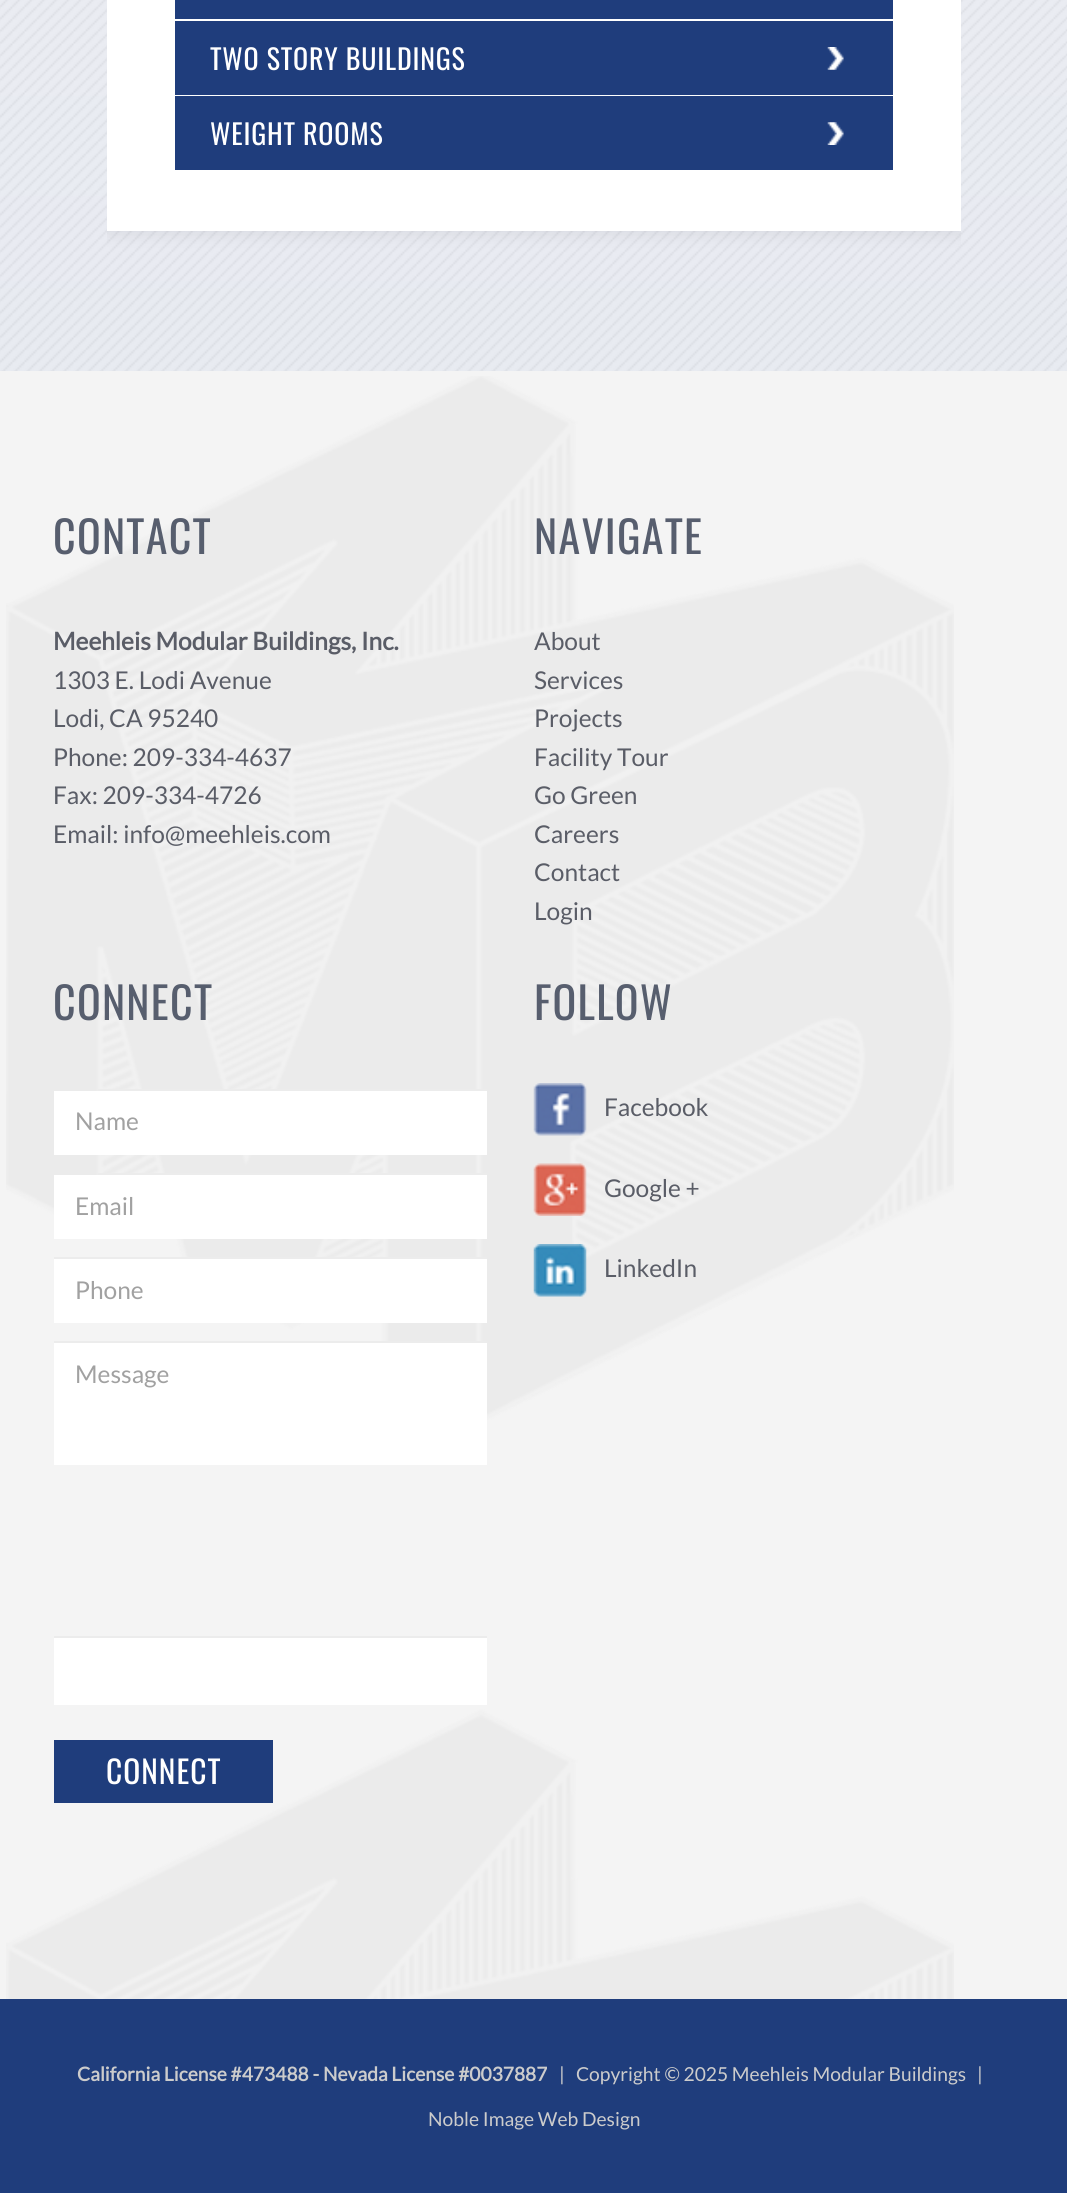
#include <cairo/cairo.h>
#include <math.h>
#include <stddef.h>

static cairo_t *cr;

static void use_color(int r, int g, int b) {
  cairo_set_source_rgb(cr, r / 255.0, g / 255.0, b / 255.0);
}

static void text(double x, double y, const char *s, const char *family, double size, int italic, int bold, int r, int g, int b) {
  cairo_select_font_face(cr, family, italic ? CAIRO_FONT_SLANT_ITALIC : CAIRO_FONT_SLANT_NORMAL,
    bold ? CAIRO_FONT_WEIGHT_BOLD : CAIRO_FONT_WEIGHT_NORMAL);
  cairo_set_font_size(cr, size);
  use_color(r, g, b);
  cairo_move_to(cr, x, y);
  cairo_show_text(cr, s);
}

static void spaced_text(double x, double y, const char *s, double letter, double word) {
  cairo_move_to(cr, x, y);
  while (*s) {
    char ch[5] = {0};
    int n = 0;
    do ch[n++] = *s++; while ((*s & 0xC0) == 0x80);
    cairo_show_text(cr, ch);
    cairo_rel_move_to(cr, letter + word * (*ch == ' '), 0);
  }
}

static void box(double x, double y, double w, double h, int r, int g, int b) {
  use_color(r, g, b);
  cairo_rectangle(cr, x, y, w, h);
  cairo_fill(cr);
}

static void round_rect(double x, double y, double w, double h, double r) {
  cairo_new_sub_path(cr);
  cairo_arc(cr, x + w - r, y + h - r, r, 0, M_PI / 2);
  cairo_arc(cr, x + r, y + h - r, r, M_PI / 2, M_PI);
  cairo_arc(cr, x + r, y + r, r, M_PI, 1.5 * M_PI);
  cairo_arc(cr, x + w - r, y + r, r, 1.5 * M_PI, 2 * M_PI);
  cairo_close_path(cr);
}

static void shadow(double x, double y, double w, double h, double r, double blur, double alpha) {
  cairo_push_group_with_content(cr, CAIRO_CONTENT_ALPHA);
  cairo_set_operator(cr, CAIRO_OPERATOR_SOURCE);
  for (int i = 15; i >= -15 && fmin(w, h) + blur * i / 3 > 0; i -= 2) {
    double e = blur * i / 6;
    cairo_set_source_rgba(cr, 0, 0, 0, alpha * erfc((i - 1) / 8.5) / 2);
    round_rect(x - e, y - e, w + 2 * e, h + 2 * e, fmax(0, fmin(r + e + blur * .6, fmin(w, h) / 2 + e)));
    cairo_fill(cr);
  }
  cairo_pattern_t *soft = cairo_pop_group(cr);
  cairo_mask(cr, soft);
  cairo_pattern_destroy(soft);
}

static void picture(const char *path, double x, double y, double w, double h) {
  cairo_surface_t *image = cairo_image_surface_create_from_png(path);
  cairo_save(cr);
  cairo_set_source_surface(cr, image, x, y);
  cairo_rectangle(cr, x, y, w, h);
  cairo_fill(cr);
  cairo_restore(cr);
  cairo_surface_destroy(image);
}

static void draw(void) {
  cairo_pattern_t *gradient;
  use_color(255, 255, 255);
  cairo_paint(cr);
  picture("img_01.png", 0, 0, 1067, 371);
  gradient = cairo_pattern_create_linear(534, -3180, 534, 371);
  cairo_pattern_add_color_stop_rgba(gradient, 0, 0.957, 0.957, 0.957, 0.3);
  cairo_pattern_add_color_stop_rgba(gradient, 1, 0.706, 0.741, 0.827, 0.3);
  cairo_set_source(cr, gradient);
  cairo_pattern_destroy(gradient);
  cairo_rectangle(cr, 0, 0, 1067, 371);
  cairo_fill(cr);
  cairo_save(cr);
  cairo_rectangle(cr, 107, 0, 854, 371);
  cairo_clip(cr);
  use_color(0, 0, 0);
  shadow(107, -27, 854, 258, 0, 9, 0.1);
  cairo_restore(cr);
  box(107, 0, 854, 231, 255, 255, 255);
  box(175, 0, 718, 19, 31, 61, 124);
  box(175, 21, 718, 74, 31, 61, 124);
  picture("img_02.png", 827, 47, 17, 23);
  box(175, 96, 718, 74, 31, 61, 124);
  picture("img_03.png", 827, 122, 17, 23);
  box(0, 371, 1067, 1628, 244, 244, 244);
  picture("img_04.png", 6, 376, 948, 1623);
  box(54, 1091, 433, 64, 255, 255, 255);
  box(98, 1089, 389, 2, 236, 236, 236);
  box(54, 1175, 433, 64, 255, 255, 255);
  box(98, 1173, 389, 2, 236, 236, 236);
  box(54, 1259, 433, 64, 255, 255, 255);
  box(54, 1257, 433, 2, 236, 236, 236);
  box(54, 1343, 433, 122, 255, 255, 255);
  box(54, 1341, 433, 2, 236, 236, 236);
  box(54, 1638, 433, 67, 255, 255, 255);
  box(54, 1636, 433, 2, 236, 236, 236);
  box(54, 1740, 219, 63, 31, 61, 124);
  picture("img_05.png", 533, 1083, 54, 53);
  picture("img_06.png", 533, 1163, 54, 53);
  picture("img_07.png", 533, 1244, 54, 53);
  box(0, 1999, 1067, 194, 31, 61, 124);
  cairo_select_font_face(cr, "Oswald", CAIRO_FONT_SLANT_NORMAL, CAIRO_FONT_WEIGHT_NORMAL);
  cairo_set_font_size(cr, 28);
  use_color(255, 255, 255);
  spaced_text(210, 70, "TWO STORY BUILDINGS", 0.8, 0);
  spaced_text(210, 145, "WEIGHT ROOMS", 0.8, 0);
  cairo_set_font_size(cr, 44);
  use_color(87, 94, 110);
  spaced_text(53, 554, "CONTACT", 1.25, 0);
  text(53, 650, "Meehleis Modular Buildings, Inc.", "Lato", 24.5, 0, 1, 90, 93, 103);
  text(53, 689, "1303 E. Lodi Avenue", "Lato", 24.5, 0, 0, 90, 93, 103);
  text(53, 727, "Lodi, CA 95240", "Lato", 24.5, 0, 0, 90, 93, 103);
  text(53, 766, "Phone: 209-334-4637", "Lato", 24.5, 0, 0, 90, 93, 103);
  text(53, 804, "Fax: 209-334-4726", "Lato", 24.5, 0, 0, 90, 93, 103);
  text(53, 843, "Email: info@meehleis.com", "Lato", 24.5, 0, 0, 90, 93, 103);
  cairo_select_font_face(cr, "Oswald", CAIRO_FONT_SLANT_NORMAL, CAIRO_FONT_WEIGHT_NORMAL);
  cairo_set_font_size(cr, 44);
  use_color(87, 94, 110);
  spaced_text(534, 554, "NAVIGATE", 1.25, 0);
  text(534, 650, "About", "Lato", 24.5, 0, 0, 90, 93, 103);
  text(534, 689, "Services", "Lato", 24.5, 0, 0, 90, 93, 103);
  text(534, 727, "Projects", "Lato", 24.5, 0, 0, 90, 93, 103);
  text(534, 766, "Facility Tour", "Lato", 24.5, 0, 0, 90, 93, 103);
  text(534, 804, "Go Green", "Lato", 24.5, 0, 0, 90, 93, 103);
  text(534, 843, "Careers", "Lato", 24.5, 0, 0, 90, 93, 103);
  text(534, 881, "Contact", "Lato", 24.5, 0, 0, 90, 93, 103);
  text(534, 920, "Login", "Lato", 24.5, 0, 0, 90, 93, 103);
  cairo_select_font_face(cr, "Oswald", CAIRO_FONT_SLANT_NORMAL, CAIRO_FONT_WEIGHT_NORMAL);
  cairo_set_font_size(cr, 44);
  use_color(87, 94, 110);
  spaced_text(53, 1020, "CONNECT", 1.25, 0);
  text(75, 1130, "Name", "Lato", 24.5, 0, 0, 161, 161, 161);
  text(75, 1215, "Email", "Lato", 24.5, 0, 0, 161, 161, 161);
  text(75, 1299, "Phone", "Lato", 24.5, 0, 0, 161, 161, 161);
  text(75, 1383, "Message", "Lato", 24.5, 0, 0, 161, 161, 161);
  cairo_select_font_face(cr, "Oswald", CAIRO_FONT_SLANT_NORMAL, CAIRO_FONT_WEIGHT_NORMAL);
  cairo_set_font_size(cr, 31.5);
  use_color(255, 255, 255);
  spaced_text(106, 1784, "CONNECT", 1, 0);
  cairo_set_font_size(cr, 44);
  use_color(87, 94, 110);
  spaced_text(534, 1020, "FOLLOW", 1.25, 0);
  text(604, 1116, "Facebook", "Lato", 24.5, 0, 0, 90, 93, 103);
  text(604, 1197, "Google +", "Lato", 24.5, 0, 0, 90, 93, 103);
  text(604, 1277, "LinkedIn", "Lato", 24.5, 0, 0, 90, 93, 103);
  text(77, 2081, "California License #473488 - Nevada License #0037887", "Lato", 19.25, 0, 1, 204, 204, 204);
  text(559, 2081, "|   Copyright © 2025 Meehleis Modular Buildings", "Lato", 19.25, 0, 0, 204, 204, 204);
  text(977, 2081, "|", "Lato", 19.25, 0, 0, 204, 204, 204);
  text(428, 2126, "Noble Image Web Design", "Lato", 19.25, 0, 0, 204, 204, 204);
}

int main(void) {
  cairo_surface_t *surface = cairo_image_surface_create(CAIRO_FORMAT_RGB24, 1067, 2193);
  cr = cairo_create(surface);
  cairo_font_options_t *options = cairo_font_options_create();
  cairo_font_options_set_hint_metrics(options, CAIRO_HINT_METRICS_OFF);
  cairo_font_options_set_hint_style(options, CAIRO_HINT_STYLE_NONE);
  cairo_set_font_options(cr, options);
  cairo_set_miter_limit(cr, 4);
  draw();
  cairo_surface_write_to_png(surface, "out.png");
  cairo_font_options_destroy(options);
  cairo_destroy(cr);
  cairo_surface_destroy(surface);
  return 0;
}
